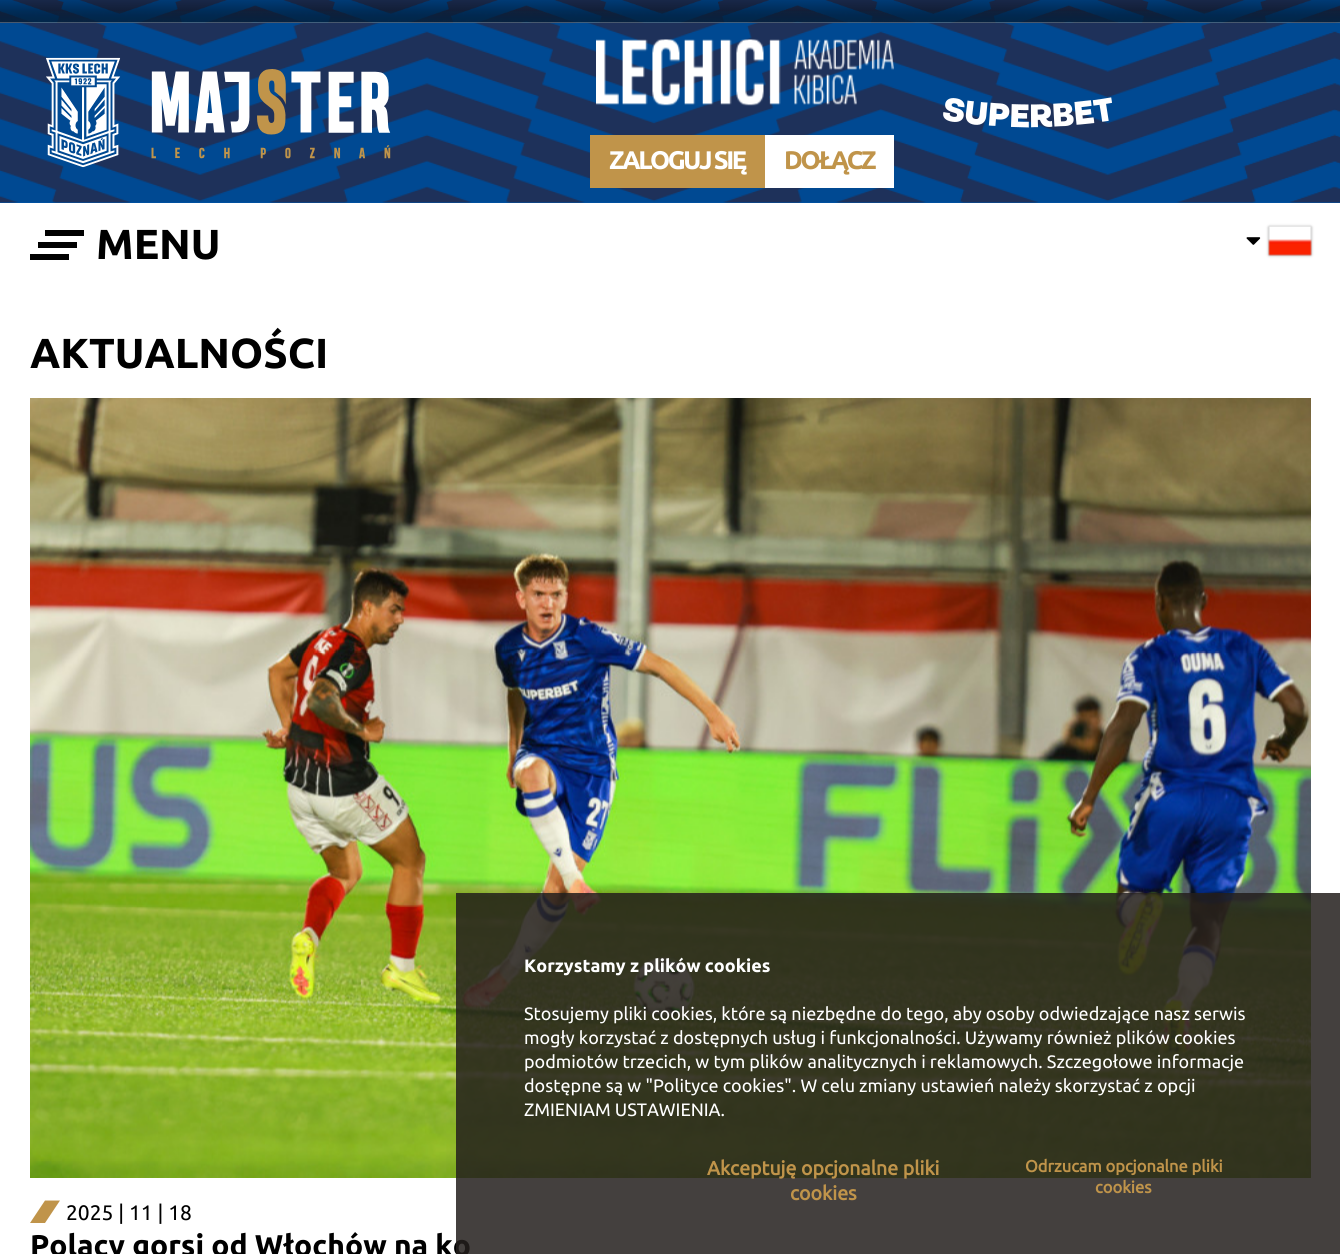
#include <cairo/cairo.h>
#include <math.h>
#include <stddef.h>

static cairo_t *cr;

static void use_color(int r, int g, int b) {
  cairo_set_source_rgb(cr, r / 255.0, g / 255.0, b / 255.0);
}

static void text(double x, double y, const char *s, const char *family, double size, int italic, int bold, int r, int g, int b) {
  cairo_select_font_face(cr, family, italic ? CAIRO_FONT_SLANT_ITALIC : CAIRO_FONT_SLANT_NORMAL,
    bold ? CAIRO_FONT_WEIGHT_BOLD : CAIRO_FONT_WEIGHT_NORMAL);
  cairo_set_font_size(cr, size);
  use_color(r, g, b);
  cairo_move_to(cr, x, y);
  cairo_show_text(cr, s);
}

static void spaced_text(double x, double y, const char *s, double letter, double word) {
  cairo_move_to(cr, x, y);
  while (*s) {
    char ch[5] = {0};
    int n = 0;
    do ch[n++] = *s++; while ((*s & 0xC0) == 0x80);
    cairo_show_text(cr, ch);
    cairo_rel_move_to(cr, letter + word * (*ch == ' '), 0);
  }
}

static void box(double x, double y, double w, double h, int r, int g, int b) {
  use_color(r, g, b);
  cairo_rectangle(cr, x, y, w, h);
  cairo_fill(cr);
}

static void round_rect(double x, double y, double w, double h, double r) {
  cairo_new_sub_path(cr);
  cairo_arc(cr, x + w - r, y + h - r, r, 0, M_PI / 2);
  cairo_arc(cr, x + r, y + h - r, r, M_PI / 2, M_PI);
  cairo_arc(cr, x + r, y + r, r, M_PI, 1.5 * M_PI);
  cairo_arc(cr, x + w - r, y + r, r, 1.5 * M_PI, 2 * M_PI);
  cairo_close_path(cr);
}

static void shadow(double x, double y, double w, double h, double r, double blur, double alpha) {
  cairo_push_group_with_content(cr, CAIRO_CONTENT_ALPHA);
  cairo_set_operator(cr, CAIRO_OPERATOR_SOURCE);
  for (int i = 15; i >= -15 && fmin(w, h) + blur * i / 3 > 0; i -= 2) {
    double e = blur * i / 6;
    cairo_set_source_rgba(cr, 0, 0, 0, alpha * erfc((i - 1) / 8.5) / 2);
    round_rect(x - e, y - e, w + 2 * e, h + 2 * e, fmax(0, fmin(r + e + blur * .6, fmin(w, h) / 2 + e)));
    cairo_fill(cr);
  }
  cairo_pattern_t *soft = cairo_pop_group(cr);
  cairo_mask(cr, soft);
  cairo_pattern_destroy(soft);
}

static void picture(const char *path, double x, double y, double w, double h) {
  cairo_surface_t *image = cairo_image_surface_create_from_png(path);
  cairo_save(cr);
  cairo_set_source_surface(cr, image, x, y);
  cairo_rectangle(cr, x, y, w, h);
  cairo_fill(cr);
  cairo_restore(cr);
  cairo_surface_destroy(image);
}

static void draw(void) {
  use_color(255, 255, 255);
  cairo_paint(cr);
  picture("img_01.png", 0, 0, 1340, 23);
  picture("img_02.png", 0, 11, 1340, 12);
  box(0, 202, 1340, 1, 0, 87, 172);
  picture("img_03.png", 0, 23, 1340, 180);
  picture("img_04.png", 46, 57, 345, 111);
  picture("img_05.png", 943, 97, 169, 31);
  picture("img_06.png", 596, 39, 298, 67);
  box(590, 135, 175, 53, 192, 148, 74);
  box(765, 135, 129, 53, 255, 255, 255);
  box(45, 230, 39, 6, 0, 0, 0);
  box(38, 242, 39, 6, 0, 0, 0);
  box(30, 254, 39, 6, 0, 0, 0);
  picture("img_07.png", 1246, 237, 15, 8);
  use_color(0, 0, 0);
  shadow(1269, 227, 42, 28, 0, 1.5, 0.5);
  picture("img_08.png", 1268, 226, 44, 30);
  picture("img_09.png", 30, 398, 1281, 780);
  use_color(192, 148, 74);
  cairo_new_path(cr);
  cairo_move_to(cr, 45, 1200.5);
  cairo_line_to(cr, 60, 1200.5);
  cairo_line_to(cr, 45, 1223);
  cairo_line_to(cr, 30, 1223);
  cairo_close_path(cr);
  cairo_fill(cr);
  cairo_select_font_face(cr, "Ubuntu", CAIRO_FONT_SLANT_NORMAL, CAIRO_FONT_WEIGHT_BOLD);
  cairo_set_font_size(cr, 25.5);
  use_color(255, 255, 255);
  spaced_text(609, 169, "ZALOGUJ SIĘ", -2.4, 0);
  use_color(192, 148, 74);
  spaced_text(784, 169, "DOŁĄCZ", -2.4, 0);
  text(96, 259, "MENU", "Ubuntu", 42, 0, 1, 0, 0, 0);
  text(30, 368, "AKTUALNOŚCI", "Ubuntu", 42, 0, 1, 0, 0, 0);
  text(66, 1220, "2025 | 11 | 18", "Ubuntu", 21, 0, 0, 0, 0, 0);
  text(30, 1256, "Polacy gorsi od Włochów na ko", "Ubuntu", 30, 0, 1, 0, 0, 0);
  cairo_set_source_rgba(cr, 0.141, 0.122, 0.114, 0.85);
  cairo_rectangle(cr, 456, 893, 884, 361);
  cairo_fill(cr);
  text(524, 972, "Korzystamy z plików cookies", "Ubuntu", 18, 0, 1, 255, 255, 255);
  text(524, 1020, "Stosujemy pliki cookies, które są niezbędne do tego, aby osoby odwiedzające nasz serwis", "Ubuntu", 18, 0, 0, 255, 255, 255);
  text(524, 1044, "mogły korzystać z dostępnych usług i funkcjonalności. Używamy również plików cookies", "Ubuntu", 18, 0, 0, 255, 255, 255);
  text(524, 1068, "podmiotów trzecich, w tym plików analitycznych i reklamowych. Szczegołowe informacje", "Ubuntu", 18, 0, 0, 255, 255, 255);
  text(524, 1092, "dostępne są w \"Polityce cookies\". W celu zmiany ustawień należy skorzystać z opcji", "Ubuntu", 18, 0, 0, 255, 255, 255);
  text(524, 1116, "ZMIENIAM USTAWIENIA.", "Ubuntu", 18, 0, 0, 255, 255, 255);
  text(707, 1175, "Akceptuję opcjonalne pliki", "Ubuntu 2", 19.5, 0, 1, 192, 148, 74);
  text(790, 1200, "cookies", "Ubuntu 2", 19.5, 0, 1, 192, 148, 74);
  text(1025, 1172, "Odrzucam opcjonalne pliki", "Ubuntu 2", 16.5, 0, 1, 192, 148, 74);
  text(1095, 1193, "cookies", "Ubuntu 2", 16.5, 0, 1, 192, 148, 74);
}

int main(void) {
  cairo_surface_t *surface = cairo_image_surface_create(CAIRO_FORMAT_RGB24, 1340, 1254);
  cr = cairo_create(surface);
  cairo_font_options_t *options = cairo_font_options_create();
  cairo_font_options_set_hint_metrics(options, CAIRO_HINT_METRICS_OFF);
  cairo_font_options_set_hint_style(options, CAIRO_HINT_STYLE_NONE);
  cairo_set_font_options(cr, options);
  cairo_set_miter_limit(cr, 4);
  draw();
  cairo_surface_write_to_png(surface, "out.png");
  cairo_font_options_destroy(options);
  cairo_destroy(cr);
  cairo_surface_destroy(surface);
  return 0;
}
